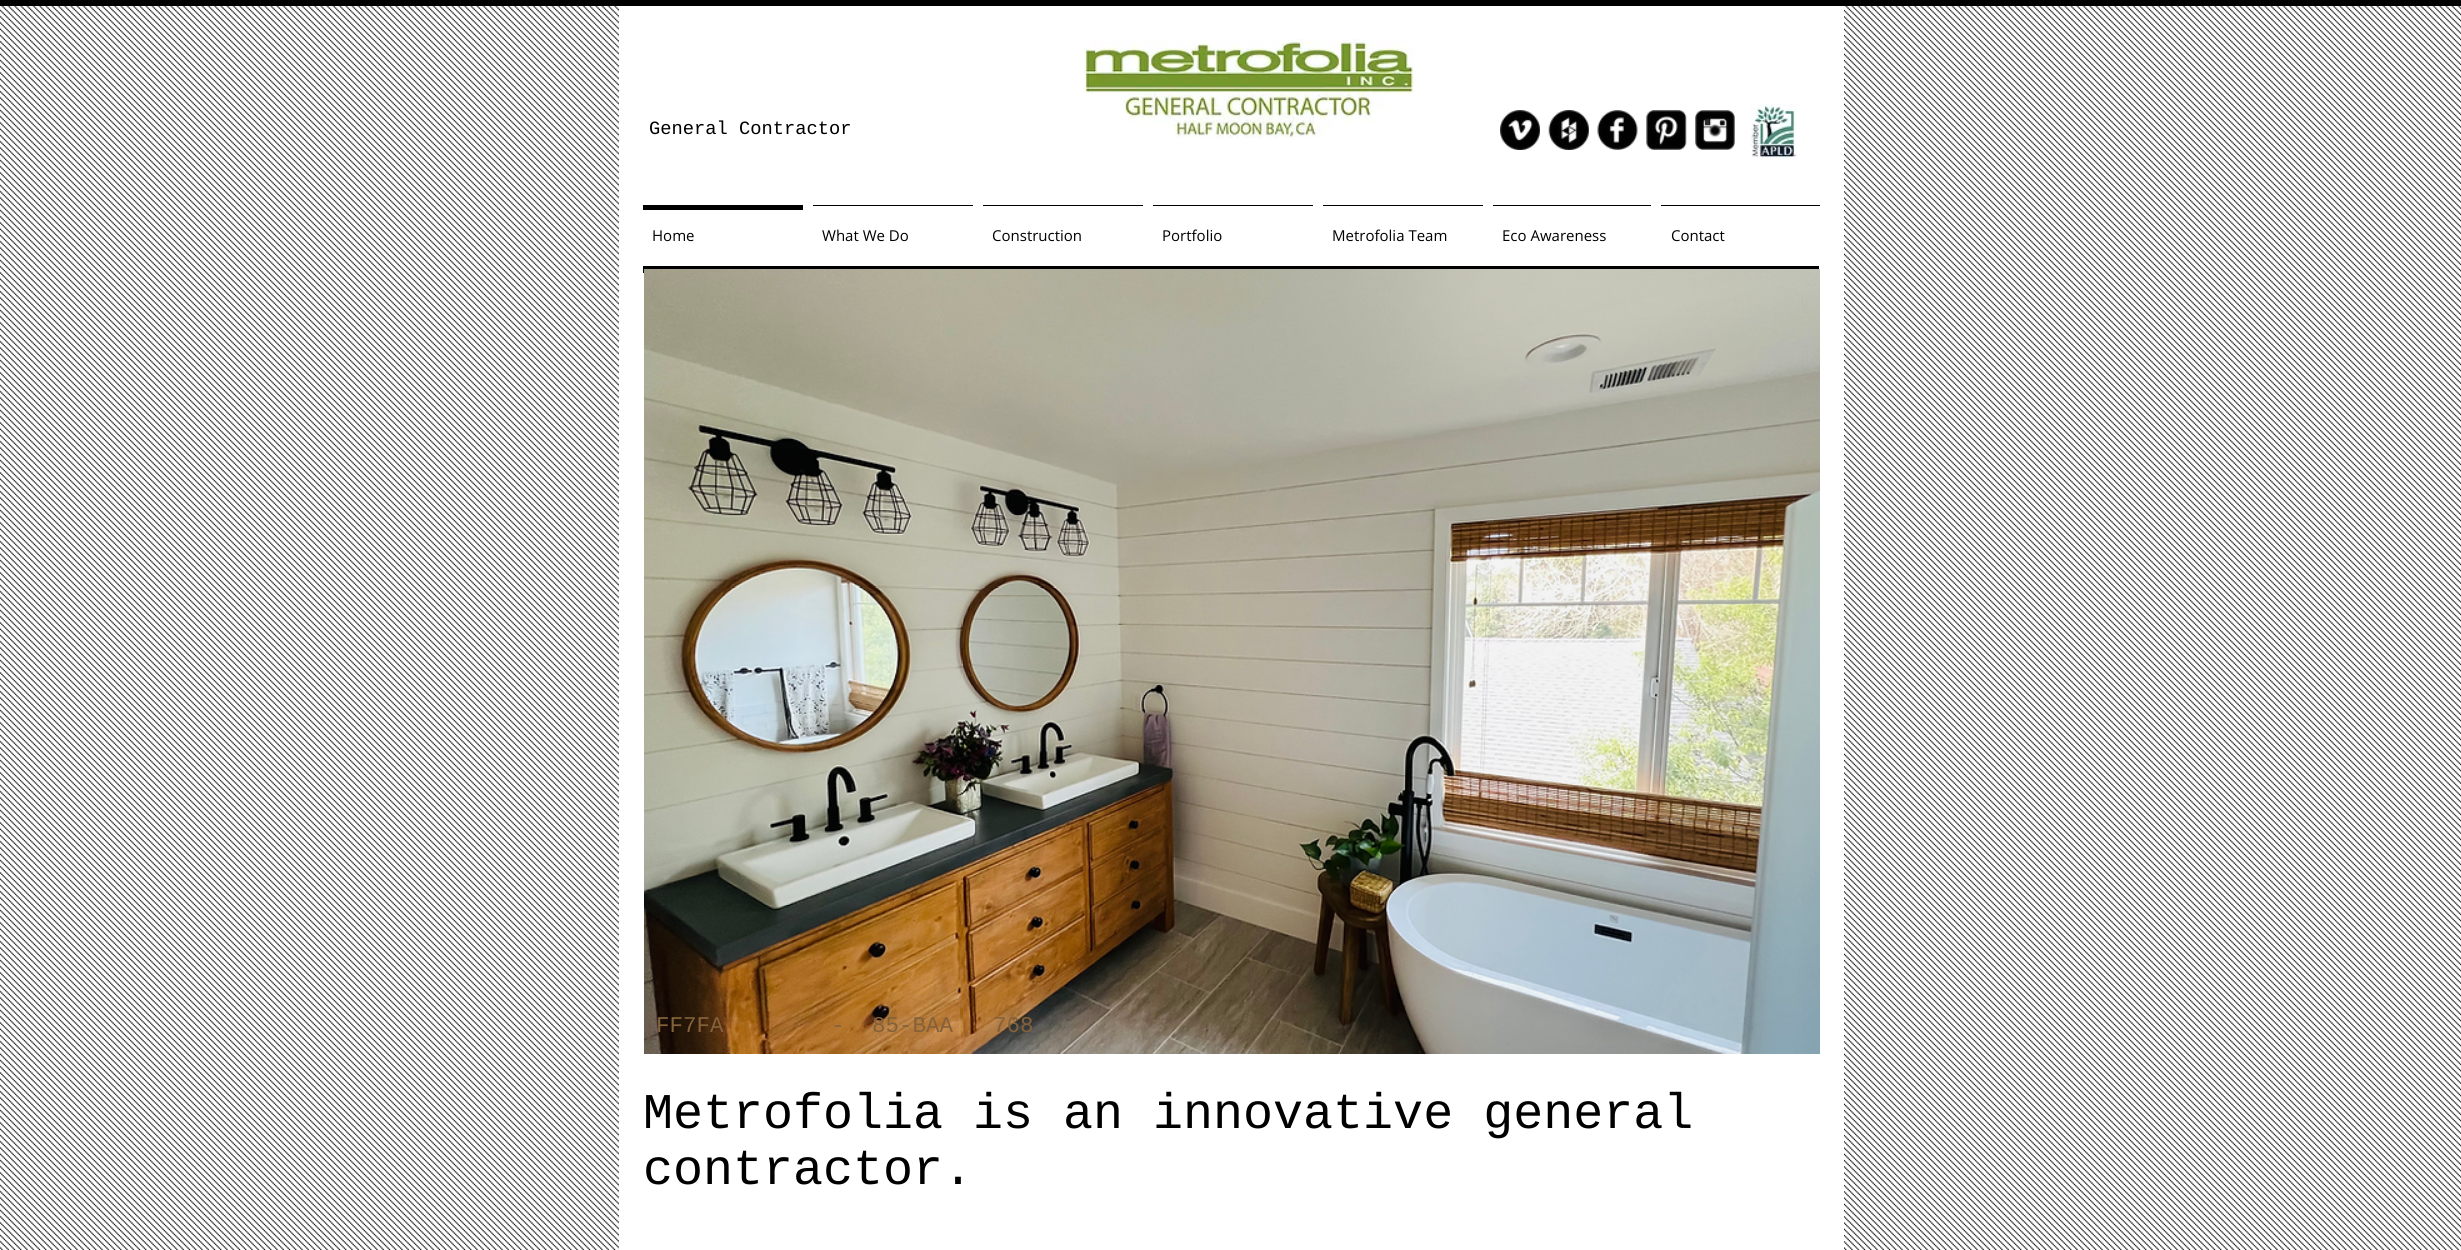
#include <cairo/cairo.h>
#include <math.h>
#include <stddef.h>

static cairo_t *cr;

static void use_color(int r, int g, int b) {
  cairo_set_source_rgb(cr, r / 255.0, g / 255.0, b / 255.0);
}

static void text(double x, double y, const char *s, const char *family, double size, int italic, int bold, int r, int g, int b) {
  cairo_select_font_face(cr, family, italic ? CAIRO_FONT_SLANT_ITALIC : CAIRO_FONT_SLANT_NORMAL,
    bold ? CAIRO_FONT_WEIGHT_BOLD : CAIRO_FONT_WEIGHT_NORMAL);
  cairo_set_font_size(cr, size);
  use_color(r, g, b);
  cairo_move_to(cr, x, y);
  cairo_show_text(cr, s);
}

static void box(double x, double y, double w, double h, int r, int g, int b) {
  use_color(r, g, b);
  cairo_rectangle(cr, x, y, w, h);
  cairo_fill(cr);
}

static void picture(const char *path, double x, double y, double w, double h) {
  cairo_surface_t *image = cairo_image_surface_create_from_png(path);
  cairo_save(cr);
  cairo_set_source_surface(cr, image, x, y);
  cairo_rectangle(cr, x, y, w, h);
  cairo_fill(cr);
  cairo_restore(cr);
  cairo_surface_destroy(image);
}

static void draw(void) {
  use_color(255, 255, 255);
  cairo_paint(cr);
  picture("img_01.png", 0, 6, 2461, 1244);
  box(0, 0, 2461, 6, 0, 0, 0);
  box(619, 6, 1225, 1244, 255, 255, 255);
  picture("img_02.png", 1083, 39, 333, 100);
  picture("img_03.png", 1500, 110, 40, 40);
  picture("img_04.png", 1548, 110, 41, 40);
  picture("img_05.png", 1597, 110, 41, 40);
  picture("img_06.png", 1646, 110, 41, 40);
  picture("img_07.png", 1695, 110, 40, 40);
  picture("img_08.png", 1750, 104, 47, 55);
  box(643, 205, 160, 5, 0, 0, 0);
  box(813, 205, 160, 1, 0, 0, 0);
  box(983, 205, 160, 1, 0, 0, 0);
  box(1153, 205, 160, 1, 0, 0, 0);
  box(1323, 205, 160, 1, 0, 0, 0);
  box(1493, 205, 158, 1, 0, 0, 0);
  box(1661, 205, 159, 1, 0, 0, 0);
  box(643, 266, 1176, 7, 0, 0, 0);
  picture("img_09.png", 644, 269, 1176, 785);
  text(649, 134, "General Contractor", "Liberation Mono", 18.75, 0, 0, 0, 0, 0);
  text(652, 241, "Home", "Open Sans", 15, 0, 0, 0, 0, 0);
  text(822, 241, "What We Do", "Open Sans", 15, 0, 0, 0, 0, 0);
  text(992, 241, "Construction", "Open Sans", 15, 0, 0, 0, 0, 0);
  text(1162, 241, "Portfolio", "Open Sans", 15, 0, 0, 0, 0, 0);
  text(1332, 241, "Metrofolia Team", "Open Sans", 15, 0, 0, 0, 0, 0);
  text(1502, 241, "Eco Awareness", "Open Sans", 15, 0, 0, 0, 0, 0);
  text(1671, 241, "Contact", "Open Sans", 15, 0, 0, 0, 0, 0);
  text(656, 1032, "FF7FA", "Liberation Mono", 22.5, 0, 0, 132, 97, 58);
  text(831, 1032, "-", "Liberation Mono", 22.5, 0, 0, 132, 97, 58);
  text(872, 1032, "85-BAA", "Liberation Mono", 22.5, 0, 0, 132, 97, 58);
  text(993, 1032, "768", "Liberation Mono", 22.5, 0, 0, 132, 97, 58);
  text(643, 1128, "Metrofolia is an innovative general", "Liberation Mono", 50, 0, 0, 0, 0, 0);
  text(643, 1184, "contractor.", "Liberation Mono", 50, 0, 0, 0, 0, 0);
}

int main(void) {
  cairo_surface_t *surface = cairo_image_surface_create(CAIRO_FORMAT_RGB24, 2461, 1250);
  cr = cairo_create(surface);
  cairo_font_options_t *options = cairo_font_options_create();
  cairo_font_options_set_hint_metrics(options, CAIRO_HINT_METRICS_OFF);
  cairo_font_options_set_hint_style(options, CAIRO_HINT_STYLE_NONE);
  cairo_set_font_options(cr, options);
  cairo_set_miter_limit(cr, 4);
  draw();
  cairo_surface_write_to_png(surface, "out.png");
  cairo_font_options_destroy(options);
  cairo_destroy(cr);
  cairo_surface_destroy(surface);
  return 0;
}
